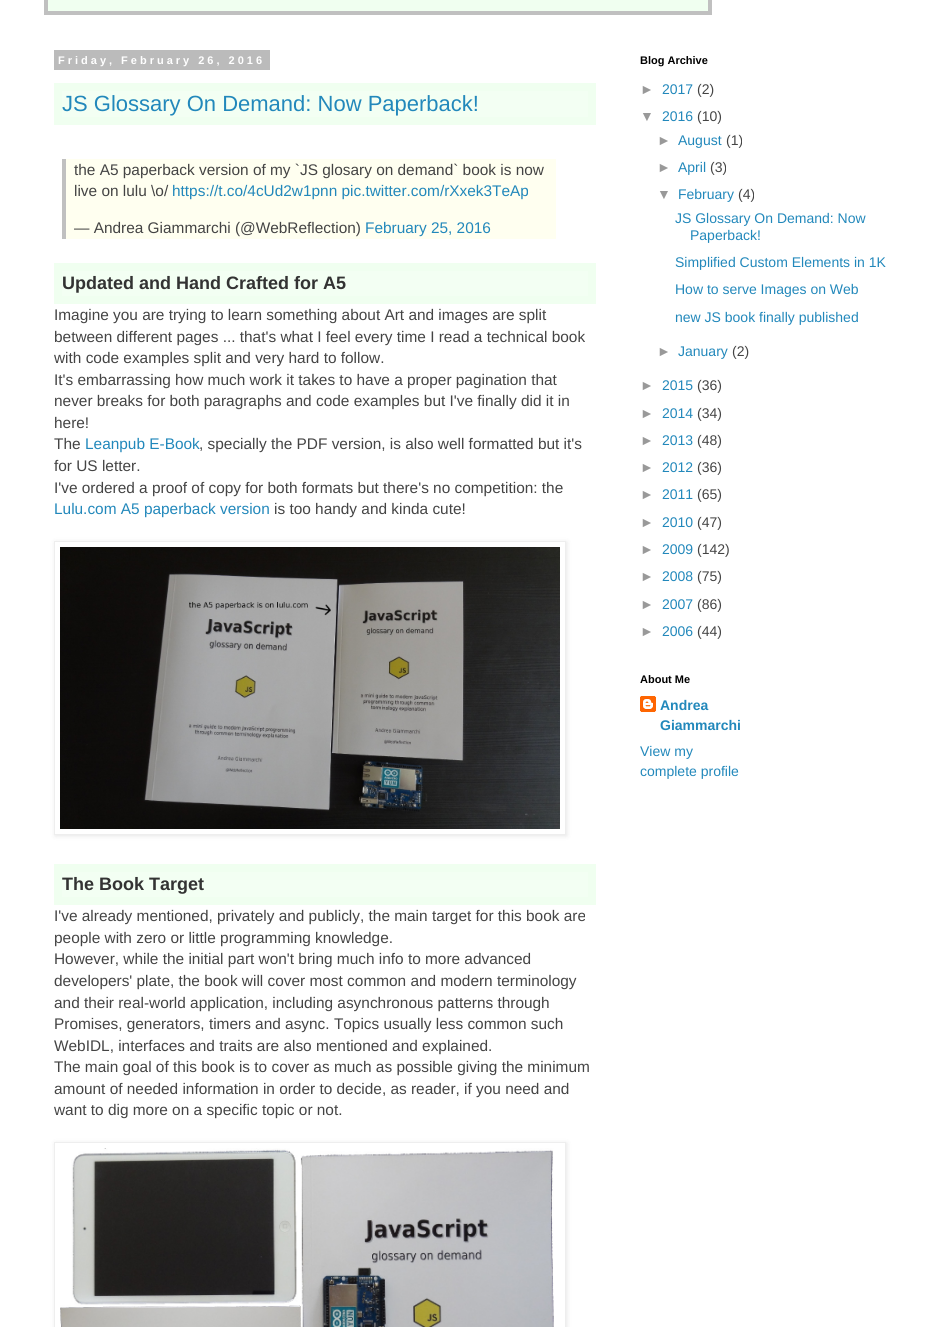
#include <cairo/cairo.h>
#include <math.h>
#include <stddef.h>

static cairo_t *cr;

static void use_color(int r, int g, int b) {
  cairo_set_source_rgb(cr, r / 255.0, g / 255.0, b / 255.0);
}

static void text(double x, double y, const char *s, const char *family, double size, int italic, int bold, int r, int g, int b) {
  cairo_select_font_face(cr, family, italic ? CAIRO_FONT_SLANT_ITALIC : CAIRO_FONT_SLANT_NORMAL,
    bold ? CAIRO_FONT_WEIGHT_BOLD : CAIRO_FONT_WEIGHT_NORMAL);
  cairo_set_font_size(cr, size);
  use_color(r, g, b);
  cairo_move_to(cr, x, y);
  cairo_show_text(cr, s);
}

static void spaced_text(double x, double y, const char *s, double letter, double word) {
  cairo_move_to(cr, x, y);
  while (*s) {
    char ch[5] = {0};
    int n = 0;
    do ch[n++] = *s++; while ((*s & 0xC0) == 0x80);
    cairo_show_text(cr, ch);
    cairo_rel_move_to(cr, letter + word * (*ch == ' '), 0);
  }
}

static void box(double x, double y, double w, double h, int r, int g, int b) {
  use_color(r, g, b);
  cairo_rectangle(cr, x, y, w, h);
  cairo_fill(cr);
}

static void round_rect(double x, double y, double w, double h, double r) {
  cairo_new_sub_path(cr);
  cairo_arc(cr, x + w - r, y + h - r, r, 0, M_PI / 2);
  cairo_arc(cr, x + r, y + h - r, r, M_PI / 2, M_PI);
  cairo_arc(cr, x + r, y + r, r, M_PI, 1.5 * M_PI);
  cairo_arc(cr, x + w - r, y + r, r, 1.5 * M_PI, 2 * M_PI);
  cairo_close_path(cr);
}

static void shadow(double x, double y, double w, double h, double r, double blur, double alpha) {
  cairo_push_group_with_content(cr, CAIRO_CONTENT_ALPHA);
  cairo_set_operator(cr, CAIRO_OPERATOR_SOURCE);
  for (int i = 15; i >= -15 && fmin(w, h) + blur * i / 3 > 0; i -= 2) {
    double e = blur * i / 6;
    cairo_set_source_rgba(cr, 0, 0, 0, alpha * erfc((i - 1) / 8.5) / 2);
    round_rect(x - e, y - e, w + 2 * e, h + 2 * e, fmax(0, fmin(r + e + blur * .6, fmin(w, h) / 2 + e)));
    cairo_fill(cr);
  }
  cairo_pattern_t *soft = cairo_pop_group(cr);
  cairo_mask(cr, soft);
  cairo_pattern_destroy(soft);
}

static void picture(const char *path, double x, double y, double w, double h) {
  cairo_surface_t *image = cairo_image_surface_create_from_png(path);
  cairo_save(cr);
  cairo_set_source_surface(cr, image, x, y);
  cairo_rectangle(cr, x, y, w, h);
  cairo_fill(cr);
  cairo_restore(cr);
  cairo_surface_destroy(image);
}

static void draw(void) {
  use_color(255, 255, 255);
  cairo_paint(cr);
  use_color(240, 255, 240);
  cairo_rectangle(cr, 46, -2, 664, 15);
  cairo_fill_preserve(cr);
  use_color(192, 192, 192);
  cairo_set_line_width(cr, 4);
  cairo_stroke(cr);
  box(54, 50, 216, 20, 187, 187, 187);
  use_color(243, 255, 243);
  cairo_rectangle(cr, 58, 87, 534, 34);
  cairo_fill_preserve(cr);
  use_color(240, 255, 240);
  cairo_set_line_width(cr, 8);
  cairo_stroke(cr);
  box(66, 159, 490, 80, 255, 255, 240);
  box(62, 159, 4, 80, 192, 192, 192);
  use_color(243, 255, 243);
  cairo_rectangle(cr, 58, 267, 534, 33);
  cairo_fill_preserve(cr);
  use_color(240, 255, 240);
  cairo_stroke(cr);
  cairo_save(cr);
  cairo_set_fill_rule(cr, CAIRO_FILL_RULE_EVEN_ODD);
  cairo_new_path(cr);
  cairo_move_to(cr, 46, 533);
  cairo_line_to(cr, 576, 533);
  cairo_line_to(cr, 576, 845);
  cairo_line_to(cr, 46, 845);
  cairo_close_path(cr);
  cairo_move_to(cr, 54, 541);
  cairo_line_to(cr, 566, 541);
  cairo_line_to(cr, 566, 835);
  cairo_line_to(cr, 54, 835);
  cairo_close_path(cr);
  cairo_clip(cr);
  use_color(0, 0, 0);
  shadow(55, 542, 512, 294, 0, 2.5, 0.1);
  cairo_restore(cr);
  cairo_rectangle(cr, 54.5, 541.5, 511, 293);
  use_color(238, 238, 238);
  cairo_set_line_width(cr, 1);
  cairo_stroke(cr);
  picture("img_01.png", 60, 547, 500, 282);
  use_color(243, 255, 243);
  cairo_rectangle(cr, 58, 868, 534, 33);
  cairo_fill_preserve(cr);
  use_color(240, 255, 240);
  cairo_set_line_width(cr, 8);
  cairo_stroke(cr);
  cairo_save(cr);
  cairo_set_fill_rule(cr, CAIRO_FILL_RULE_EVEN_ODD);
  cairo_new_path(cr);
  cairo_move_to(cr, 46, 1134);
  cairo_line_to(cr, 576, 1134);
  cairo_line_to(cr, 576, 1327);
  cairo_line_to(cr, 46, 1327);
  cairo_close_path(cr);
  cairo_move_to(cr, 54, 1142);
  cairo_line_to(cr, 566, 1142);
  cairo_line_to(cr, 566, 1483);
  cairo_line_to(cr, 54, 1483);
  cairo_close_path(cr);
  cairo_clip(cr);
  use_color(0, 0, 0);
  shadow(55, 1143, 512, 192, 0, 2.5, 0.1);
  cairo_restore(cr);
  cairo_rectangle(cr, 54.5, 1142.5, 511, 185);
  use_color(238, 238, 238);
  cairo_set_line_width(cr, 1);
  cairo_stroke(cr);
  picture("img_02.png", 60, 1148, 494, 179);
  picture("img_03.png", 640, 696, 16, 16);
  cairo_select_font_face(cr, "Liberation Sans", CAIRO_FONT_SLANT_NORMAL, CAIRO_FONT_WEIGHT_BOLD);
  cairo_set_font_size(cr, 11);
  use_color(255, 255, 255);
  spaced_text(58, 64, "Friday, February 26, 2016", 3, 0);
  text(62, 111, "JS Glossary On Demand: Now Paperback!", "Liberation Sans", 22, 0, 0, 34, 136, 187);
  text(74, 175, "the A5 paperback version of my `JS glosary on demand` book is now", "Liberation Sans", 15.4, 0, 0, 68, 68, 68);
  text(74, 196, "live on lulu \\o/", "Liberation Sans", 15.4, 0, 0, 68, 68, 68);
  text(172, 196, "https://t.co/4cUd2w1pnn pic.twitter.com/rXxek3TeAp", "Liberation Sans", 15.4, 0, 0, 34, 136, 187);
  text(74, 233, "— Andrea Giammarchi (@WebReflection)", "Liberation Sans", 15.4, 0, 0, 68, 68, 68);
  text(365, 233, "February 25, 2016", "Liberation Sans", 15.4, 0, 0, 34, 136, 187);
  text(62, 289, "Updated and Hand Crafted for A5", "Liberation Sans", 18, 0, 1, 51, 51, 51);
  text(54, 320, "Imagine you are trying to learn something about Art and images are split", "Liberation Sans", 15.4, 0, 0, 68, 68, 68);
  text(54, 342, "between different pages ... that's what I feel every time I read a technical book", "Liberation Sans", 15.4, 0, 0, 68, 68, 68);
  text(54, 363, "with code examples split and very hard to follow.", "Liberation Sans", 15.4, 0, 0, 68, 68, 68);
  text(54, 385, "It's embarrassing how much work it takes to have a proper pagination that", "Liberation Sans", 15.4, 0, 0, 68, 68, 68);
  text(54, 406, "never breaks for both paragraphs and code examples but I've finally did it in", "Liberation Sans", 15.4, 0, 0, 68, 68, 68);
  text(54, 428, "here!", "Liberation Sans", 15.4, 0, 0, 68, 68, 68);
  text(54, 449, "The", "Liberation Sans", 15.4, 0, 0, 68, 68, 68);
  text(85, 449, "Leanpub E-Book", "Liberation Sans", 15.4, 0, 0, 34, 136, 187);
  text(199, 449, ", specially the PDF version, is also well formatted but it's", "Liberation Sans", 15.4, 0, 0, 68, 68, 68);
  text(54, 471, "for US letter.", "Liberation Sans", 15.4, 0, 0, 68, 68, 68);
  text(54, 493, "I've ordered a proof of copy for both formats but there's no competition: the", "Liberation Sans", 15.4, 0, 0, 68, 68, 68);
  text(54, 514, "Lulu.com A5 paperback version", "Liberation Sans", 15.4, 0, 0, 34, 136, 187);
  text(274, 514, "is too handy and kinda cute!", "Liberation Sans", 15.4, 0, 0, 68, 68, 68);
  text(62, 890, "The Book Target", "Liberation Sans", 18, 0, 1, 51, 51, 51);
  text(54, 921, "I've already mentioned, privately and publicly, the main target for this book are", "Liberation Sans", 15.4, 0, 0, 68, 68, 68);
  text(54, 943, "people with zero or little programming knowledge.", "Liberation Sans", 15.4, 0, 0, 68, 68, 68);
  text(54, 964, "However, while the initial part won't bring much info to more advanced", "Liberation Sans", 15.4, 0, 0, 68, 68, 68);
  text(54, 986, "developers' plate, the book will cover most common and modern terminology", "Liberation Sans", 15.4, 0, 0, 68, 68, 68);
  text(54, 1008, "and their real-world application, including asynchronous patterns through", "Liberation Sans", 15.4, 0, 0, 68, 68, 68);
  text(54, 1029, "Promises, generators, timers and async. Topics usually less common such", "Liberation Sans", 15.4, 0, 0, 68, 68, 68);
  text(54, 1051, "WebIDL, interfaces and traits are also mentioned and explained.", "Liberation Sans", 15.4, 0, 0, 68, 68, 68);
  text(54, 1072, "The main goal of this book is to cover as much as possible giving the minimum", "Liberation Sans", 15.4, 0, 0, 68, 68, 68);
  text(54, 1094, "amount of needed information in order to decide, as reader, if you need and", "Liberation Sans", 15.4, 0, 0, 68, 68, 68);
  text(54, 1115, "want to dig more on a specific topic or not.", "Liberation Sans", 15.4, 0, 0, 68, 68, 68);
  text(640, 64, "Blog Archive", "Liberation Sans", 11, 0, 1, 0, 0, 0);
  text(640, 94, "►", "Liberation Sans", 14, 0, 0, 153, 153, 153);
  text(662, 94, "2017", "Liberation Sans", 14, 0, 0, 34, 136, 187);
  text(697, 94, "(2)", "Liberation Sans", 14, 0, 0, 68, 68, 68);
  text(640, 121, "▼", "Liberation Sans", 14, 0, 0, 153, 153, 153);
  text(662, 121, "2016", "Liberation Sans", 14, 0, 0, 34, 136, 187);
  text(697, 121, "(10)", "Liberation Sans", 14, 0, 0, 68, 68, 68);
  text(657, 145, "►", "Liberation Sans", 14, 0, 0, 153, 153, 153);
  text(678, 145, "August", "Liberation Sans", 14, 0, 0, 34, 136, 187);
  text(726, 145, "(1)", "Liberation Sans", 14, 0, 0, 68, 68, 68);
  text(657, 172, "►", "Liberation Sans", 14, 0, 0, 153, 153, 153);
  text(678, 172, "April", "Liberation Sans", 14, 0, 0, 34, 136, 187);
  text(710, 172, "(3)", "Liberation Sans", 14, 0, 0, 68, 68, 68);
  text(657, 199, "▼", "Liberation Sans", 14, 0, 0, 153, 153, 153);
  text(678, 199, "February", "Liberation Sans", 14, 0, 0, 34, 136, 187);
  text(738, 199, "(4)", "Liberation Sans", 14, 0, 0, 68, 68, 68);
  text(675, 223, "JS Glossary On Demand: Now", "Liberation Sans", 14, 0, 0, 34, 136, 187);
  text(690, 240, "Paperback!", "Liberation Sans", 14, 0, 0, 34, 136, 187);
  text(675, 267, "Simplified Custom Elements in 1K", "Liberation Sans", 14, 0, 0, 34, 136, 187);
  text(675, 294, "How to serve Images on Web", "Liberation Sans", 14, 0, 0, 34, 136, 187);
  text(675, 322, "new JS book finally published", "Liberation Sans", 14, 0, 0, 34, 136, 187);
  text(657, 356, "►", "Liberation Sans", 14, 0, 0, 153, 153, 153);
  text(678, 356, "January", "Liberation Sans", 14, 0, 0, 34, 136, 187);
  text(732, 356, "(2)", "Liberation Sans", 14, 0, 0, 68, 68, 68);
  text(640, 390, "►", "Liberation Sans", 14, 0, 0, 153, 153, 153);
  text(662, 390, "2015", "Liberation Sans", 14, 0, 0, 34, 136, 187);
  text(697, 390, "(36)", "Liberation Sans", 14, 0, 0, 68, 68, 68);
  text(640, 418, "►", "Liberation Sans", 14, 0, 0, 153, 153, 153);
  text(662, 418, "2014", "Liberation Sans", 14, 0, 0, 34, 136, 187);
  text(697, 418, "(34)", "Liberation Sans", 14, 0, 0, 68, 68, 68);
  text(640, 445, "►", "Liberation Sans", 14, 0, 0, 153, 153, 153);
  text(662, 445, "2013", "Liberation Sans", 14, 0, 0, 34, 136, 187);
  text(697, 445, "(48)", "Liberation Sans", 14, 0, 0, 68, 68, 68);
  text(640, 472, "►", "Liberation Sans", 14, 0, 0, 153, 153, 153);
  text(662, 472, "2012", "Liberation Sans", 14, 0, 0, 34, 136, 187);
  text(697, 472, "(36)", "Liberation Sans", 14, 0, 0, 68, 68, 68);
  text(640, 499, "►", "Liberation Sans", 14, 0, 0, 153, 153, 153);
  text(662, 499, "2011", "Liberation Sans", 14, 0, 0, 34, 136, 187);
  text(697, 499, "(65)", "Liberation Sans", 14, 0, 0, 68, 68, 68);
  text(640, 527, "►", "Liberation Sans", 14, 0, 0, 153, 153, 153);
  text(662, 527, "2010", "Liberation Sans", 14, 0, 0, 34, 136, 187);
  text(697, 527, "(47)", "Liberation Sans", 14, 0, 0, 68, 68, 68);
  text(640, 554, "►", "Liberation Sans", 14, 0, 0, 153, 153, 153);
  text(662, 554, "2009", "Liberation Sans", 14, 0, 0, 34, 136, 187);
  text(697, 554, "(142)", "Liberation Sans", 14, 0, 0, 68, 68, 68);
  text(640, 581, "►", "Liberation Sans", 14, 0, 0, 153, 153, 153);
  text(662, 581, "2008", "Liberation Sans", 14, 0, 0, 34, 136, 187);
  text(697, 581, "(75)", "Liberation Sans", 14, 0, 0, 68, 68, 68);
  text(640, 609, "►", "Liberation Sans", 14, 0, 0, 153, 153, 153);
  text(662, 609, "2007", "Liberation Sans", 14, 0, 0, 34, 136, 187);
  text(697, 609, "(86)", "Liberation Sans", 14, 0, 0, 68, 68, 68);
  text(640, 636, "►", "Liberation Sans", 14, 0, 0, 153, 153, 153);
  text(662, 636, "2006", "Liberation Sans", 14, 0, 0, 34, 136, 187);
  text(697, 636, "(44)", "Liberation Sans", 14, 0, 0, 68, 68, 68);
  text(640, 683, "About Me", "Liberation Sans", 11, 0, 1, 0, 0, 0);
  text(660, 710, "Andrea", "Liberation Sans", 14, 0, 1, 34, 136, 187);
  text(660, 730, "Giammarchi", "Liberation Sans", 14, 0, 1, 34, 136, 187);
  text(640, 756, "View my", "Liberation Sans", 14, 0, 0, 34, 136, 187);
  text(640, 776, "complete profile", "Liberation Sans", 14, 0, 0, 34, 136, 187);
}

int main(void) {
  cairo_surface_t *surface = cairo_image_surface_create(CAIRO_FORMAT_RGB24, 928, 1327);
  cr = cairo_create(surface);
  cairo_font_options_t *options = cairo_font_options_create();
  cairo_font_options_set_hint_metrics(options, CAIRO_HINT_METRICS_OFF);
  cairo_font_options_set_hint_style(options, CAIRO_HINT_STYLE_NONE);
  cairo_set_font_options(cr, options);
  cairo_set_miter_limit(cr, 4);
  draw();
  cairo_surface_write_to_png(surface, "out.png");
  cairo_font_options_destroy(options);
  cairo_destroy(cr);
  cairo_surface_destroy(surface);
  return 0;
}
